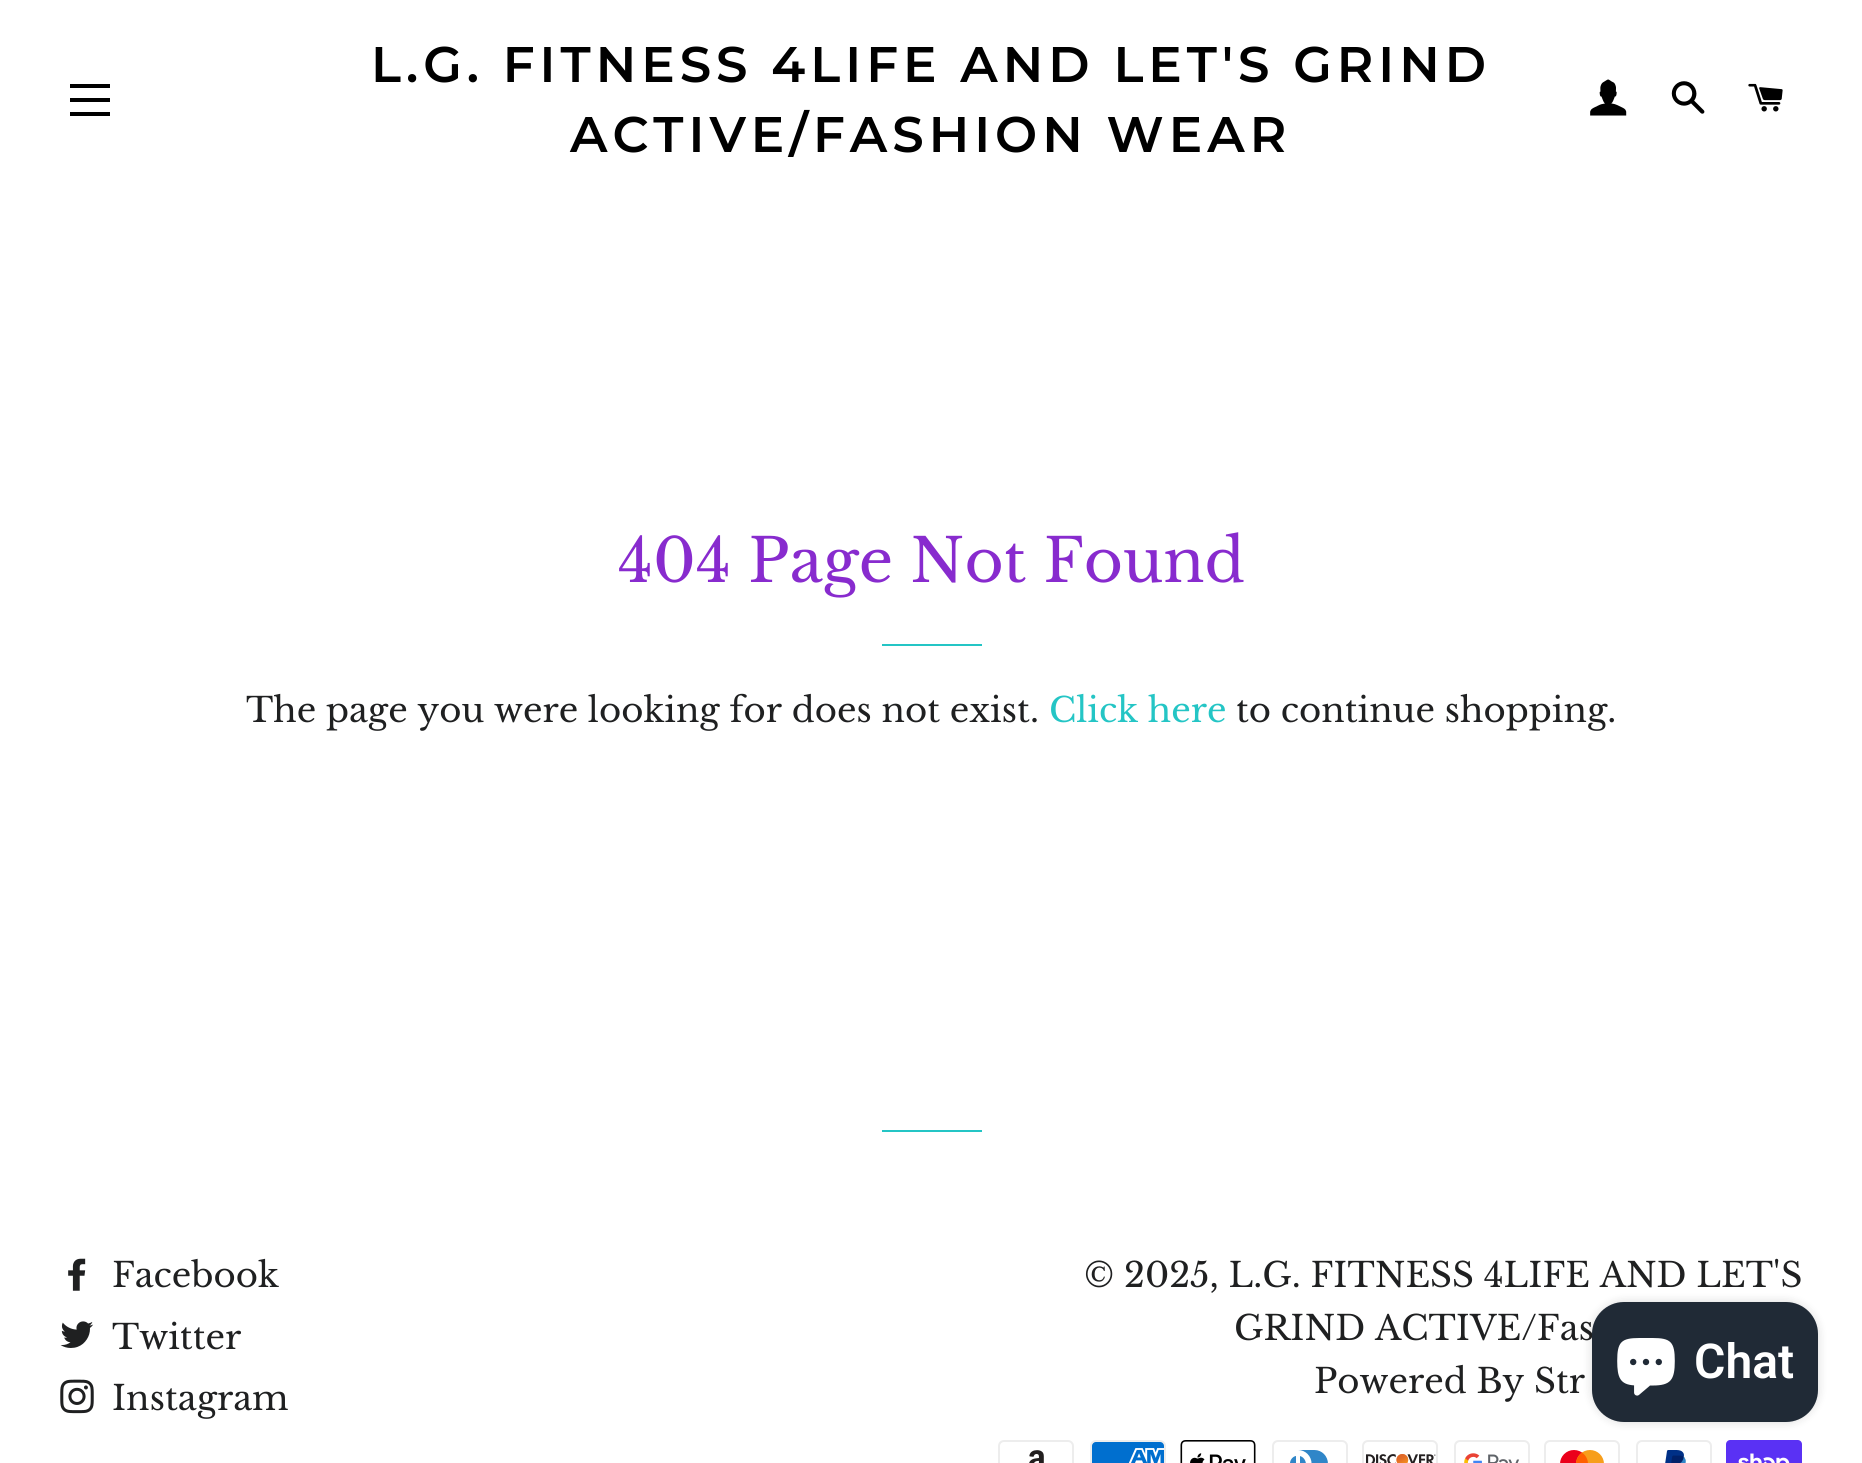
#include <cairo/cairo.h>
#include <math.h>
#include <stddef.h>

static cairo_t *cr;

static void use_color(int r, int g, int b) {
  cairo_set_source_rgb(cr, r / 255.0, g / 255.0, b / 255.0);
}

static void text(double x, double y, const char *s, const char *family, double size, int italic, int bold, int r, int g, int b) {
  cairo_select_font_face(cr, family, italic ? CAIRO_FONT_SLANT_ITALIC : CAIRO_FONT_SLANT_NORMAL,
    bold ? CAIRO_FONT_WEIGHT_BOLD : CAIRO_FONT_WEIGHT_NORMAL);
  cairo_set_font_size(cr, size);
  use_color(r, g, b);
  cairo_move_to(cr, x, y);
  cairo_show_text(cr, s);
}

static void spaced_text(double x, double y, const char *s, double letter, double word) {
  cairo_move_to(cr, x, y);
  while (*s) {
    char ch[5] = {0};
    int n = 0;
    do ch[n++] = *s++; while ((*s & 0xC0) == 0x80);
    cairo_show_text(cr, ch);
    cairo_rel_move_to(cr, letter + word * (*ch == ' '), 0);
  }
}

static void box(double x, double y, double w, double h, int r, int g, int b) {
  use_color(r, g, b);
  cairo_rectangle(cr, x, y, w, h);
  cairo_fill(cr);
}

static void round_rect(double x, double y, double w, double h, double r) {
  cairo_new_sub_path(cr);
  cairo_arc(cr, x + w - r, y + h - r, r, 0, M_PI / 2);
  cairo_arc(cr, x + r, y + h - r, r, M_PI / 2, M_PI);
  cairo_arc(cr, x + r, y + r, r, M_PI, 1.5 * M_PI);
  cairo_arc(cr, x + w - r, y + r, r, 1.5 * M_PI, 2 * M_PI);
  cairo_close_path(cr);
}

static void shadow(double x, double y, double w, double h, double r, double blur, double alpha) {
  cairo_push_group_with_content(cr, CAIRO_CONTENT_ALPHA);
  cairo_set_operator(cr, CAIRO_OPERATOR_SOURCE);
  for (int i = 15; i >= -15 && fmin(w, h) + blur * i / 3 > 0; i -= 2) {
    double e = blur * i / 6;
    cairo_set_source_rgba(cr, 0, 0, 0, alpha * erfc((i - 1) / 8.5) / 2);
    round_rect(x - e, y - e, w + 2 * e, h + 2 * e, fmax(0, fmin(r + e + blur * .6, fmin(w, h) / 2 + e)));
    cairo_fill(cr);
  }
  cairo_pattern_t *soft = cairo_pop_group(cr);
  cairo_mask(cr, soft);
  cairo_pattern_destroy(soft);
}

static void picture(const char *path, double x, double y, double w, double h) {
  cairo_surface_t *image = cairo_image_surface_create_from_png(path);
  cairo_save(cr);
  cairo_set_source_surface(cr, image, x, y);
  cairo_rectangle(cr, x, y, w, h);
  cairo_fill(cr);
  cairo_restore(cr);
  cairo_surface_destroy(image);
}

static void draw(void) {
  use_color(255, 255, 255);
  cairo_paint(cr);
  box(70, 84, 40, 4, 0, 0, 0);
  box(70, 98, 40, 4, 0, 0, 0);
  box(70, 112, 40, 4, 0, 0, 0);
  picture("img_01.png", 1590, 79, 37, 37);
  picture("img_02.png", 1671, 81, 34, 33);
  picture("img_03.png", 1748, 83, 35, 29);
  box(882, 644, 100, 2, 36, 197, 197);
  box(882, 1130, 100, 2, 36, 197, 197);
  picture("img_04.png", 68, 1258, 18, 33);
  picture("img_05.png", 60, 1321, 34, 27);
  picture("img_06.png", 60, 1379, 34, 35);
  picture("img_07.png", 998, 1440, 76, 23);
  picture("img_08.png", 1090, 1440, 76, 23);
  picture("img_09.png", 1180, 1440, 76, 23);
  picture("img_10.png", 1272, 1440, 76, 23);
  picture("img_11.png", 1362, 1440, 76, 23);
  picture("img_12.png", 1454, 1440, 76, 23);
  picture("img_13.png", 1544, 1440, 76, 23);
  picture("img_14.png", 1636, 1440, 76, 23);
  picture("img_15.png", 1726, 1440, 76, 23);
  use_color(0, 0, 0);
  shadow(1592, 1302, 226, 120, 32, 5, 0.15);
  cairo_select_font_face(cr, "Montserrat SemiBold", CAIRO_FONT_SLANT_NORMAL, CAIRO_FONT_WEIGHT_NORMAL);
  cairo_set_font_size(cr, 50);
  use_color(0, 0, 0);
  spaced_text(371, 82, "L.G. FITNESS 4LIFE AND LET'S GRIND", 5, 0);
  spaced_text(570, 152, "ACTIVE/FASHION WEAR", 5, 0);
  text(618, 582, "404 Page Not Found", "Libre Baskerville", 60, 0, 0, 136, 43, 206);
  text(246, 722, "The page you were looking for does not exist.", "Libre Baskerville", 34, 0, 0, 31, 32, 33);
  text(1049, 722, "Click here", "Libre Baskerville", 34, 0, 0, 36, 197, 197);
  text(1236, 722, "to continue shopping.", "Libre Baskerville", 34, 0, 0, 31, 32, 33);
  text(112, 1287, "Facebook", "Libre Baskerville", 34, 0, 0, 31, 32, 33);
  text(112, 1349, "Twitter", "Libre Baskerville", 34, 0, 0, 31, 32, 33);
  text(112, 1410, "Instagram", "Libre Baskerville", 34, 0, 0, 31, 32, 33);
  text(1084, 1287, "© 2025, L.G. FITNESS 4LIFE AND LET'S", "Libre Baskerville", 34, 0, 0, 31, 32, 33);
  text(1234, 1340, "GRIND ACTIVE/Fas", "Libre Baskerville", 34, 0, 0, 31, 32, 33);
  text(1314, 1393, "Powered By Str", "Libre Baskerville", 34, 0, 0, 31, 32, 33);
  use_color(32, 42, 54);
  round_rect(1592, 1302, 226, 120, 32);
  cairo_fill(cr);
  picture("img_16.png", 1617, 1338, 58, 58);
  text(1694, 1378, "Chat", "Roboto SemiBold", 48, 0, 0, 255, 255, 255);
}

int main(void) {
  cairo_surface_t *surface = cairo_image_surface_create(CAIRO_FORMAT_RGB24, 1862, 1463);
  cr = cairo_create(surface);
  cairo_font_options_t *options = cairo_font_options_create();
  cairo_font_options_set_hint_metrics(options, CAIRO_HINT_METRICS_OFF);
  cairo_font_options_set_hint_style(options, CAIRO_HINT_STYLE_NONE);
  cairo_set_font_options(cr, options);
  cairo_set_miter_limit(cr, 4);
  draw();
  cairo_surface_write_to_png(surface, "out.png");
  cairo_font_options_destroy(options);
  cairo_destroy(cr);
  cairo_surface_destroy(surface);
  return 0;
}
